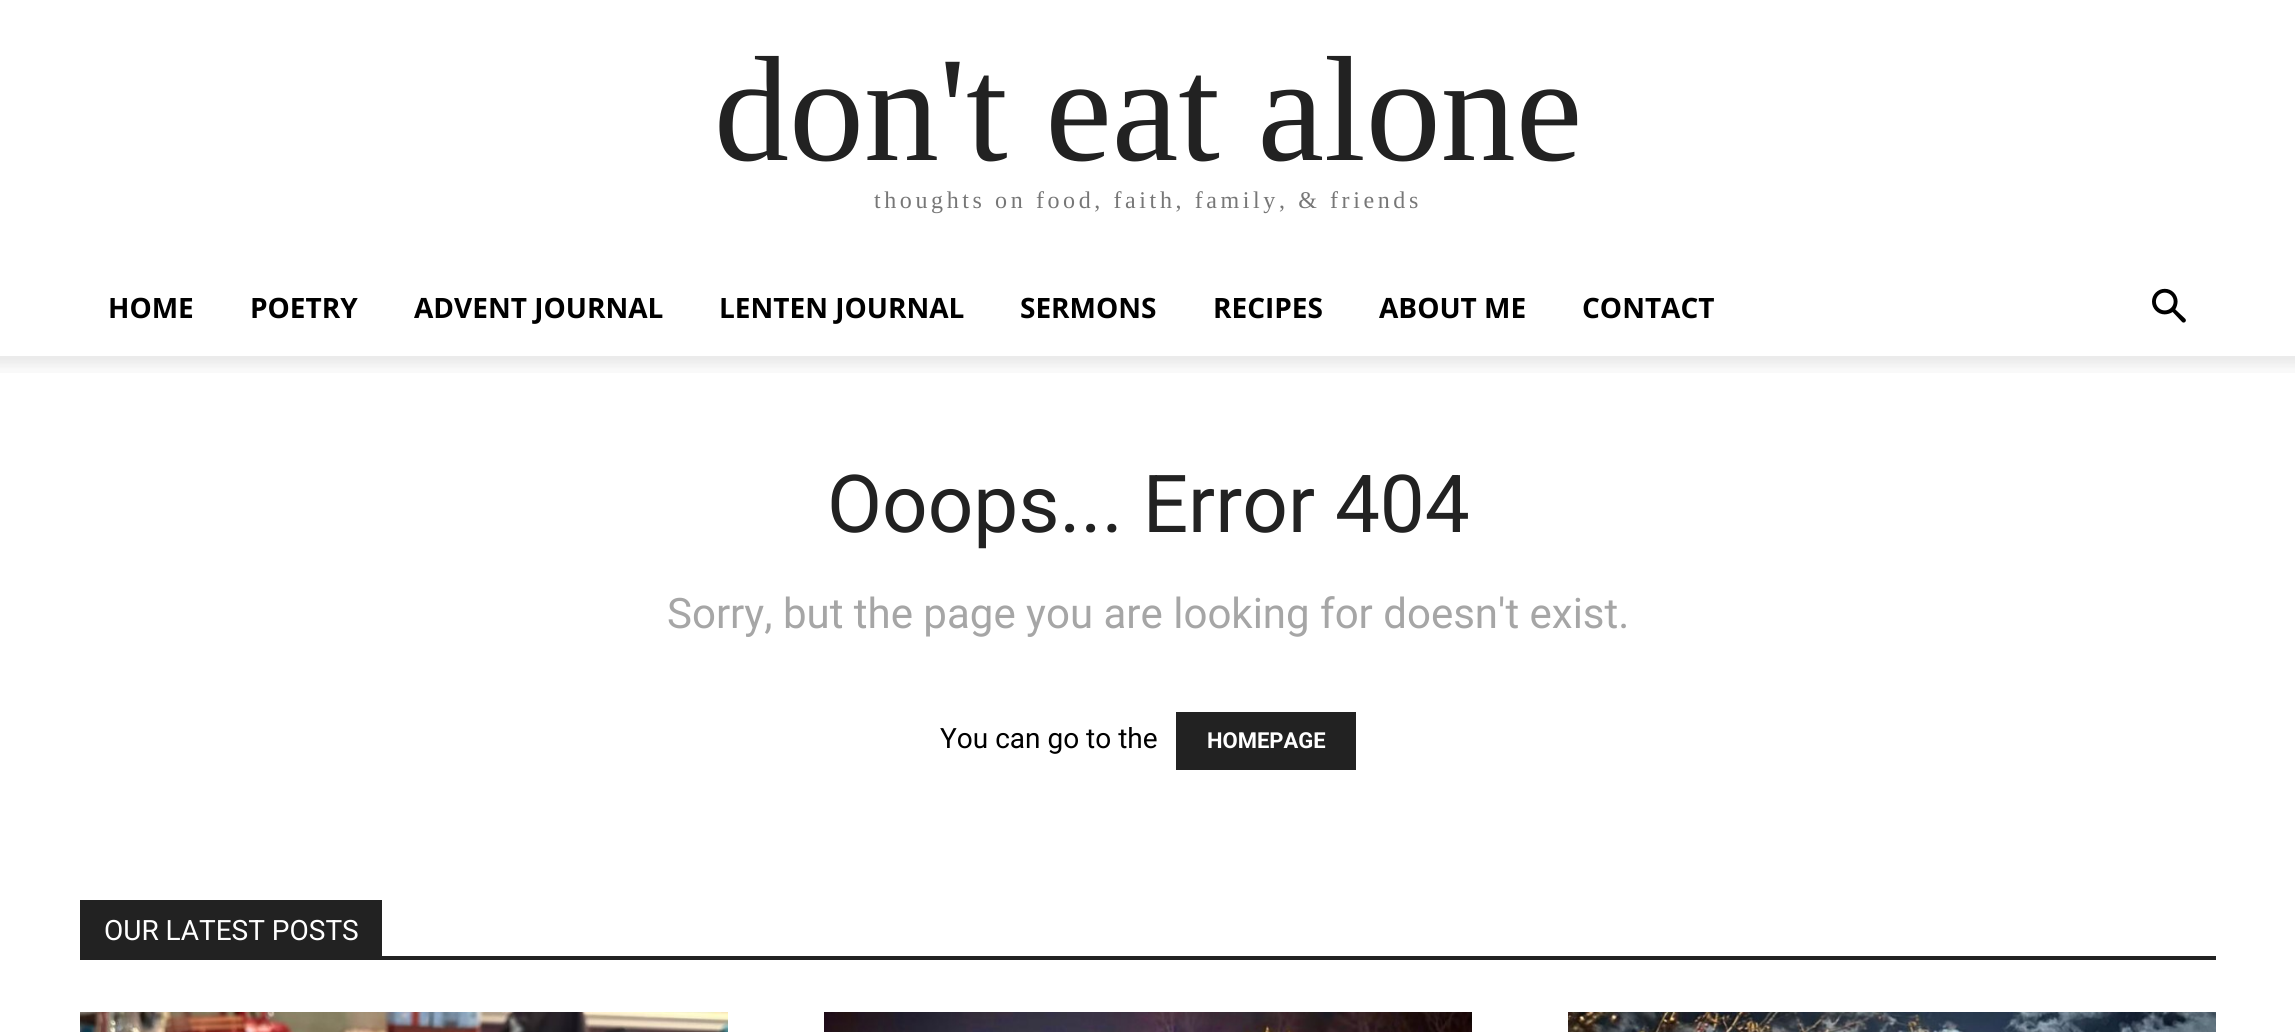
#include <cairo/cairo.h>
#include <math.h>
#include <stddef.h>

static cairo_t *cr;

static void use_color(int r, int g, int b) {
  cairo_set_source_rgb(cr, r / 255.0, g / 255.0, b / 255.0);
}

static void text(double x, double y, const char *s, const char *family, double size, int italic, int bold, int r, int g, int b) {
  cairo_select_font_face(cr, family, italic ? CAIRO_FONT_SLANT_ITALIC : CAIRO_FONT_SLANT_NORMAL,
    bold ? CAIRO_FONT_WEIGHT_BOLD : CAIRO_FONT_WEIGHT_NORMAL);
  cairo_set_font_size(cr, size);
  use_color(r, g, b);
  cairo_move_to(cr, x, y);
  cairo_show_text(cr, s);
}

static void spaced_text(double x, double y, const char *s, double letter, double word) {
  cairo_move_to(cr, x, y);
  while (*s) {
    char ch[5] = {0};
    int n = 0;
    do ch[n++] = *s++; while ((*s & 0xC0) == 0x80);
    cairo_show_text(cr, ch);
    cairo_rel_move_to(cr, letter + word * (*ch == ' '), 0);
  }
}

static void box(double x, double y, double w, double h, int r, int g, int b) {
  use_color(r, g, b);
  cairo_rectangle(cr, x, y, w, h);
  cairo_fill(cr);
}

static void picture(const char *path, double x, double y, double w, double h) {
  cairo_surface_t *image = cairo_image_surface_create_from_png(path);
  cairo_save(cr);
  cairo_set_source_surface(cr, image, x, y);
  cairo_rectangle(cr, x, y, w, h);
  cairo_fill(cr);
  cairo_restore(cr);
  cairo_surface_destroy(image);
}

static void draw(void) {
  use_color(255, 255, 255);
  cairo_paint(cr);
  picture("img_01.png", 2152, 288, 34, 35);
  picture("img_02.png", 0, 356, 2295, 17);
  box(1176, 712, 180, 58, 34, 34, 34);
  box(80, 956, 2136, 4, 34, 34, 34);
  box(80, 900, 302, 56, 34, 34, 34);
  picture("img_03.png", 80, 1012, 648, 20);
  picture("img_04.png", 824, 1012, 648, 20);
  picture("img_05.png", 1568, 1012, 648, 20);
  text(714, 160, "don't eat alone", "Liberation Serif", 150, 0, 0, 34, 34, 34);
  cairo_set_font_size(cr, 24);
  use_color(119, 119, 119);
  spaced_text(874, 208, "thoughts on food, faith, family, & friends", 3.6, 0);
  text(108, 318, "HOME", "Open Sans", 28, 0, 1, 0, 0, 0);
  text(250, 318, "POETRY", "Open Sans", 28, 0, 1, 0, 0, 0);
  text(414, 318, "ADVENT JOURNAL", "Open Sans", 28, 0, 1, 0, 0, 0);
  text(719, 318, "LENTEN JOURNAL", "Open Sans", 28, 0, 1, 0, 0, 0);
  text(1020, 318, "SERMONS", "Open Sans", 28, 0, 1, 0, 0, 0);
  text(1213, 318, "RECIPES", "Open Sans", 28, 0, 1, 0, 0, 0);
  text(1379, 318, "ABOUT ME", "Open Sans", 28, 0, 1, 0, 0, 0);
  text(1582, 318, "CONTACT", "Open Sans", 28, 0, 1, 0, 0, 0);
  text(827, 532, "Ooops... Error 404", "Roboto", 80, 0, 0, 34, 34, 34);
  text(667, 628, "Sorry, but the page you are looking for doesn't exist.", "Roboto", 42, 0, 0, 166, 166, 166);
  text(940, 748, "You can go to the", "Roboto", 28, 0, 0, 0, 0, 0);
  text(1207, 748, "HOMEPAGE", "Roboto", 22, 0, 1, 255, 255, 255);
  text(104, 940, "OUR LATEST POSTS", "Roboto", 28, 0, 0, 255, 255, 255);
}

int main(void) {
  cairo_surface_t *surface = cairo_image_surface_create(CAIRO_FORMAT_RGB24, 2295, 1032);
  cr = cairo_create(surface);
  cairo_font_options_t *options = cairo_font_options_create();
  cairo_font_options_set_hint_metrics(options, CAIRO_HINT_METRICS_OFF);
  cairo_font_options_set_hint_style(options, CAIRO_HINT_STYLE_NONE);
  cairo_set_font_options(cr, options);
  cairo_set_miter_limit(cr, 4);
  draw();
  cairo_surface_write_to_png(surface, "out.png");
  cairo_font_options_destroy(options);
  cairo_destroy(cr);
  cairo_surface_destroy(surface);
  return 0;
}
